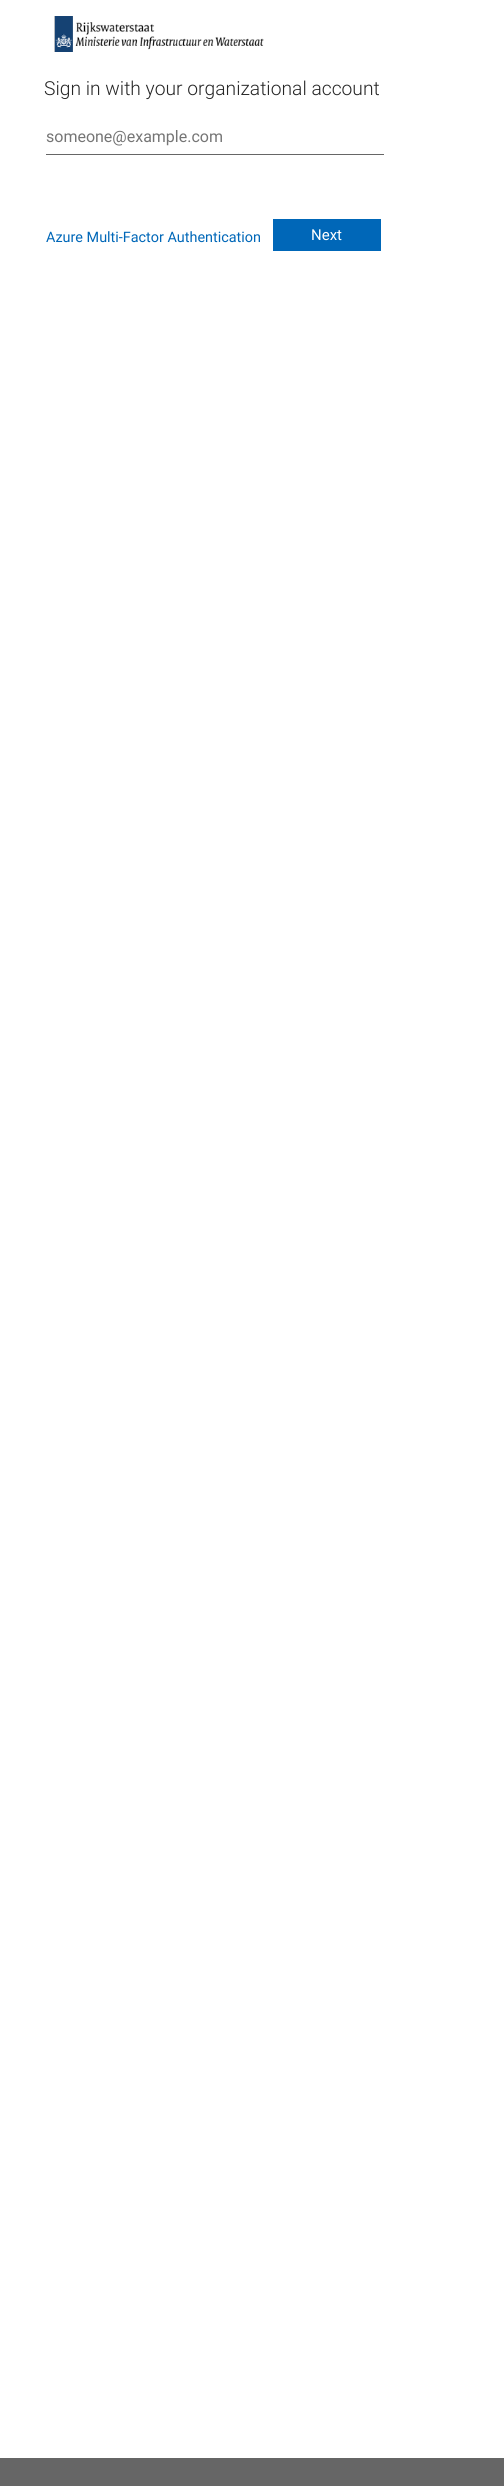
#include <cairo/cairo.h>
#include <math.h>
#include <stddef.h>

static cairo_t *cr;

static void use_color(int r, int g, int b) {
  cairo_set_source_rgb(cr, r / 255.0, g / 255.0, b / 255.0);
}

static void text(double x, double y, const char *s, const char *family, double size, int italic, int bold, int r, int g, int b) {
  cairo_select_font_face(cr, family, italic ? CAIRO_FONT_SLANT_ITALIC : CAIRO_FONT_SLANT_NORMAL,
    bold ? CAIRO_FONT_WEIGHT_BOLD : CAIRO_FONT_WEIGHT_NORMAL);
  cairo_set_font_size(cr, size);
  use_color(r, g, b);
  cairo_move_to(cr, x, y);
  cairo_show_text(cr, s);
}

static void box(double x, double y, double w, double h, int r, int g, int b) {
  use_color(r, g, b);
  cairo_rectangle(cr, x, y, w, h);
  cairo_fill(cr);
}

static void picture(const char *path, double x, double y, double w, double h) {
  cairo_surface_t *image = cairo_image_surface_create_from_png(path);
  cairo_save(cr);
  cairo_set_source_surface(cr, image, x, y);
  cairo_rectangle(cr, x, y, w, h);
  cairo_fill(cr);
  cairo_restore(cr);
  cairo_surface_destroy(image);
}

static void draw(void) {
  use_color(255, 255, 255);
  cairo_paint(cr);
  picture("img_01.png", 54, 16, 210, 36);
  box(46, 154, 338, 1, 102, 102, 102);
  box(273, 219, 108, 32, 0, 103, 184);
  box(0, 2458, 504, 28, 102, 102, 102);
  text(44, 95, "Sign in with your organizational account", "Roboto Light", 19.25, 0, 0, 38, 38, 38);
  text(46, 142, "someone@example.com", "Roboto", 16, 0, 0, 117, 117, 117);
  text(311, 240, "Next", "Roboto", 15, 0, 0, 255, 255, 255);
  text(46, 242, "Azure Multi-Factor Authentication", "Roboto", 14.4, 0, 0, 0, 103, 184);
}

int main(void) {
  cairo_surface_t *surface = cairo_image_surface_create(CAIRO_FORMAT_RGB24, 504, 2486);
  cr = cairo_create(surface);
  cairo_font_options_t *options = cairo_font_options_create();
  cairo_font_options_set_hint_metrics(options, CAIRO_HINT_METRICS_OFF);
  cairo_font_options_set_hint_style(options, CAIRO_HINT_STYLE_NONE);
  cairo_set_font_options(cr, options);
  cairo_set_miter_limit(cr, 4);
  draw();
  cairo_surface_write_to_png(surface, "out.png");
  cairo_font_options_destroy(options);
  cairo_destroy(cr);
  cairo_surface_destroy(surface);
  return 0;
}
